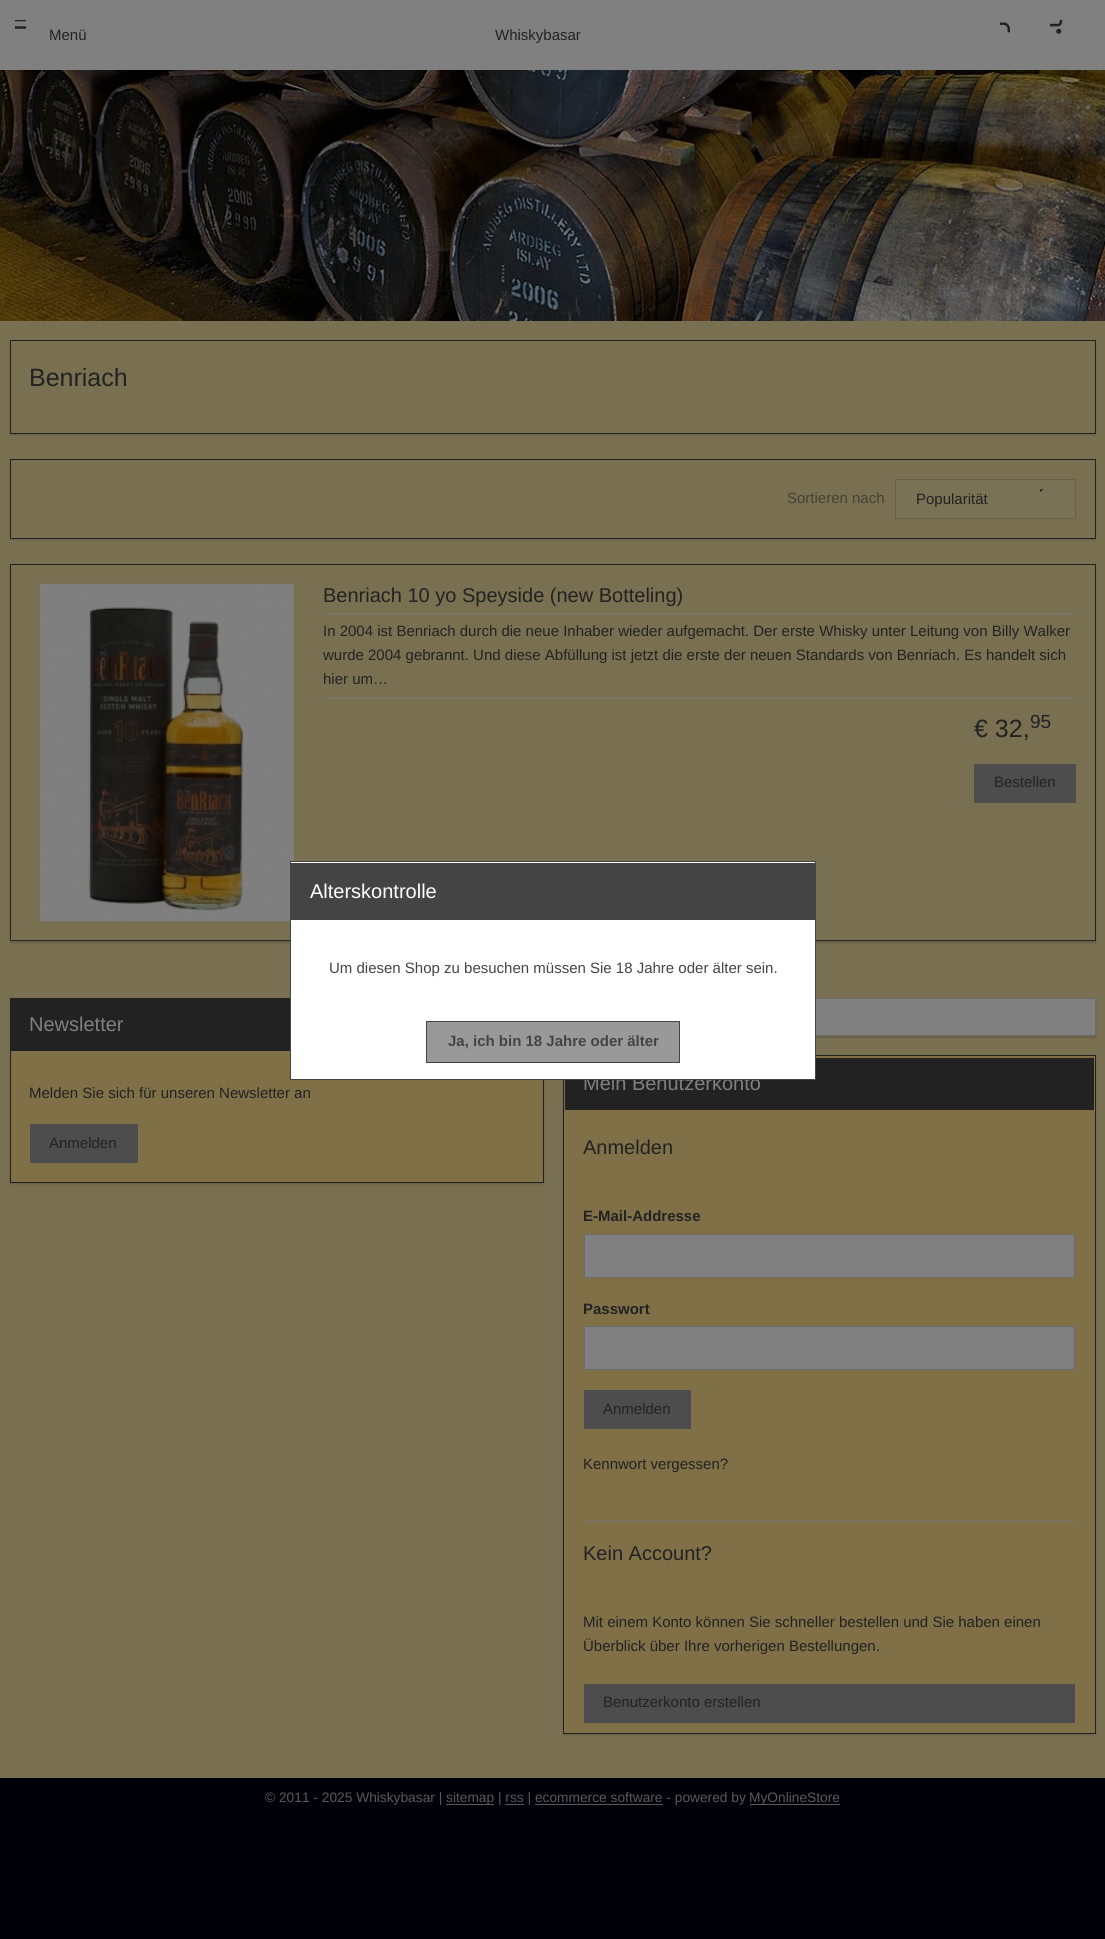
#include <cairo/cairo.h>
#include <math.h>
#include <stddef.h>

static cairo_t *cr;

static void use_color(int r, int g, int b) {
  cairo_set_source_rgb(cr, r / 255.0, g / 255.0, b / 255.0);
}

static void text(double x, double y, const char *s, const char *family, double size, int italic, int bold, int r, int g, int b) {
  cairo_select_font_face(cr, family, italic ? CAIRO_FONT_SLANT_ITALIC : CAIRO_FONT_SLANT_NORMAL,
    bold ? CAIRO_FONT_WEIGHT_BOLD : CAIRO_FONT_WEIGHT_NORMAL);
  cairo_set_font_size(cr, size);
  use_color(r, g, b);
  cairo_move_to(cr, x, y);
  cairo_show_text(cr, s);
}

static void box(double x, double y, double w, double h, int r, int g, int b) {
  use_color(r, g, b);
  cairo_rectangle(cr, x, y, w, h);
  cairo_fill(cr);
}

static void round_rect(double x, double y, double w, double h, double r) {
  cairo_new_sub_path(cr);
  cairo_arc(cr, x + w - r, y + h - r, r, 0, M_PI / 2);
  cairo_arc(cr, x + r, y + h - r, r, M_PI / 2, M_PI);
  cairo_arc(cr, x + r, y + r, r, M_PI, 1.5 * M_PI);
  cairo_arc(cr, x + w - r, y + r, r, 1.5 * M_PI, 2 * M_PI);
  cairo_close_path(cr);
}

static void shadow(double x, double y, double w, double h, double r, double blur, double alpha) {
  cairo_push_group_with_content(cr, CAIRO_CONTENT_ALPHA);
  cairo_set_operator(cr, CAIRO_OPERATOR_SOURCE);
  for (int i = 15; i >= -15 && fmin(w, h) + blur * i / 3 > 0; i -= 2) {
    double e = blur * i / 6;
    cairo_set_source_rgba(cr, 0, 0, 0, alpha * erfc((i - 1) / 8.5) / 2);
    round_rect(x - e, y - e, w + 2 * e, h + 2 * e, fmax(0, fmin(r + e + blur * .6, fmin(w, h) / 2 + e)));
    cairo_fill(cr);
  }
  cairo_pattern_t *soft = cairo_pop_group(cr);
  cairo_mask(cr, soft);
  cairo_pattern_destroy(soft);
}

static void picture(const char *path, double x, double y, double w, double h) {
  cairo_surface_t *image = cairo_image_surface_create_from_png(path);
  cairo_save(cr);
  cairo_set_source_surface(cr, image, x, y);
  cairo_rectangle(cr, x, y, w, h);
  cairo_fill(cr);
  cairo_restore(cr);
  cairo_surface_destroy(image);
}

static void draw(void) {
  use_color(0, 0, 8);
  cairo_paint(cr);
  box(0, 0, 1105, 70, 128, 128, 128);
  picture("img_01.png", 15, 20, 12, 9);
  picture("img_02.png", 1000, 22, 10, 11);
  picture("img_03.png", 1050, 20, 13, 14);
  picture("img_04.png", 0, 70, 1105, 251);
  box(0, 321, 1105, 1457, 120, 112, 80);
  cairo_save(cr);
  cairo_set_fill_rule(cr, CAIRO_FILL_RULE_EVEN_ODD);
  cairo_new_path(cr);
  cairo_move_to(cr, 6, 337);
  cairo_line_to(cr, 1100, 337);
  cairo_line_to(cr, 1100, 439);
  cairo_line_to(cr, 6, 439);
  cairo_close_path(cr);
  cairo_move_to(cr, 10, 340);
  cairo_line_to(cr, 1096, 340);
  cairo_line_to(cr, 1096, 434);
  cairo_line_to(cr, 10, 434);
  cairo_close_path(cr);
  cairo_clip(cr);
  use_color(0, 0, 0);
  shadow(10, 341, 1086, 94, 0, 1, 0.15);
  cairo_restore(cr);
  cairo_rectangle(cr, 10.5, 340.5, 1085, 93);
  use_color(34, 34, 34);
  cairo_set_line_width(cr, 1);
  cairo_stroke(cr);
  cairo_save(cr);
  cairo_set_fill_rule(cr, CAIRO_FILL_RULE_EVEN_ODD);
  cairo_new_path(cr);
  cairo_move_to(cr, 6, 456);
  cairo_line_to(cr, 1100, 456);
  cairo_line_to(cr, 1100, 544);
  cairo_line_to(cr, 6, 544);
  cairo_close_path(cr);
  cairo_move_to(cr, 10, 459);
  cairo_line_to(cr, 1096, 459);
  cairo_line_to(cr, 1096, 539);
  cairo_line_to(cr, 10, 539);
  cairo_close_path(cr);
  cairo_clip(cr);
  use_color(0, 0, 0);
  shadow(10, 460, 1086, 80, 0, 1, 0.15);
  cairo_restore(cr);
  cairo_rectangle(cr, 10.5, 459.5, 1085, 79);
  cairo_stroke(cr);
  use_color(121, 114, 85);
  cairo_rectangle(cr, 895.5, 479.5, 180, 39);
  cairo_fill_preserve(cr);
  use_color(102, 96, 72);
  cairo_stroke(cr);
  picture("img_05.png", 1040, 489, 4, 3);
  cairo_save(cr);
  cairo_set_fill_rule(cr, CAIRO_FILL_RULE_EVEN_ODD);
  cairo_new_path(cr);
  cairo_move_to(cr, 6, 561);
  cairo_line_to(cr, 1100, 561);
  cairo_line_to(cr, 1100, 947);
  cairo_line_to(cr, 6, 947);
  cairo_close_path(cr);
  cairo_move_to(cr, 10, 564);
  cairo_line_to(cr, 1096, 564);
  cairo_line_to(cr, 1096, 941);
  cairo_line_to(cr, 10, 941);
  cairo_close_path(cr);
  cairo_clip(cr);
  use_color(0, 0, 0);
  shadow(10, 565, 1086, 378, 0, 1, 0.15);
  cairo_restore(cr);
  cairo_rectangle(cr, 10.5, 564.5, 1085, 376);
  use_color(34, 34, 34);
  cairo_stroke(cr);
  picture("img_06.png", 40, 583, 254, 339);
  box(324, 613, 752, 1, 120, 120, 120);
  box(324, 698, 752, 1, 120, 120, 120);
  box(974, 764, 102, 39, 77, 77, 77);
  use_color(0, 0, 0);
  shadow(10, 999, 534, 185, 0, 1, 0.15);
  box(11, 1051, 532, 131, 128, 112, 72);
  cairo_rectangle(cr, 10.5, 998.5, 533, 184);
  use_color(34, 34, 34);
  cairo_stroke(cr);
  box(11, 999, 279, 52, 34, 34, 34);
  box(30, 1124, 108, 39, 77, 77, 77);
  use_color(0, 0, 0);
  shadow(563, 999, 533, 39, 0, 1, 0.15);
  box(816, 999, 279, 36, 128, 128, 128);
  cairo_rectangle(cr, 563.5, 998.5, 532, 37);
  use_color(106, 107, 109);
  cairo_stroke(cr);
  use_color(0, 0, 0);
  shadow(563, 1056, 533, 679, 0, 1, 0.15);
  use_color(128, 112, 72);
  cairo_rectangle(cr, 563.5, 1055.5, 532, 678);
  cairo_fill_preserve(cr);
  use_color(34, 34, 34);
  cairo_stroke(cr);
  box(565, 1058, 529, 52, 34, 34, 34);
  use_color(128, 128, 128);
  cairo_rectangle(cr, 584.5, 1234.5, 490, 43);
  cairo_fill_preserve(cr);
  use_color(106, 107, 109);
  cairo_stroke(cr);
  use_color(128, 128, 128);
  cairo_rectangle(cr, 584.5, 1326.5, 490, 43);
  cairo_fill_preserve(cr);
  use_color(106, 107, 109);
  cairo_stroke(cr);
  box(584, 1390, 107, 39, 77, 77, 77);
  box(584, 1521, 491, 1, 120, 120, 120);
  box(584, 1684, 491, 39, 77, 77, 77);
  box(446, 1804, 48, 1, 90, 90, 92);
  box(750, 1804, 90, 1, 90, 90, 92);
  box(505, 1804, 19, 1, 90, 90, 92);
  box(535, 1804, 128, 1, 90, 90, 92);
  text(49, 40, "Menü", "Liberation Sans", 15, 0, 0, 34, 34, 34);
  text(495, 40, "Whiskybasar", "Liberation Sans", 15, 0, 0, 34, 34, 34);
  text(29, 386, "Benriach", "Liberation Sans", 25, 0, 0, 34, 34, 34);
  text(787, 503, "Sortieren nach", "Liberation Sans", 15, 0, 0, 69, 65, 53);
  text(916, 504, "Popularität", "Liberation Sans", 15, 0, 0, 34, 34, 34);
  text(323, 602, "Benriach 10 yo Speyside (new Botteling)", "Liberation Sans", 20, 0, 0, 34, 34, 34);
  text(323, 636, "In 2004 ist Benriach durch die neue Inhaber wieder aufgemacht. Der erste Whisky unter Leitung von Billy Walker", "Liberation Sans", 15, 0, 0, 34, 34, 34);
  text(323, 660, "wurde 2004 gebrannt. Und diese Abfüllung ist jetzt die erste der neuen Standards von Benriach. Es handelt sich", "Liberation Sans", 15, 0, 0, 34, 34, 34);
  text(323, 684, "hier um…", "Liberation Sans", 15, 0, 0, 34, 34, 34);
  text(974, 737, "€ 32,", "Liberation Sans", 25, 0, 0, 34, 34, 34);
  text(1030, 728, "95", "Liberation Sans", 19, 0, 0, 34, 34, 34);
  text(994, 787, "Bestellen", "Liberation Sans", 15, 0, 0, 34, 34, 34);
  text(29, 1031, "Newsletter", "Liberation Sans", 20, 0, 0, 128, 128, 128);
  text(29, 1098, "Melden Sie sich für unseren Newsletter an", "Liberation Sans", 15, 0, 0, 34, 34, 34);
  text(49, 1148, "Anmelden", "Liberation Sans", 15, 0, 0, 34, 34, 34);
  text(583, 1090, "Mein Benutzerkonto", "Liberation Sans", 20, 0, 0, 128, 128, 128);
  text(583, 1154, "Anmelden", "Liberation Sans", 20, 0, 0, 34, 34, 34);
  text(583, 1221, "E-Mail-Addresse", "Liberation Sans", 15, 0, 1, 34, 34, 34);
  text(583, 1314, "Passwort", "Liberation Sans", 15, 0, 1, 34, 34, 34);
  text(603, 1414, "Anmelden", "Liberation Sans", 15, 0, 0, 34, 34, 34);
  text(583, 1469, "Kennwort vergessen?", "Liberation Sans", 15, 0, 0, 34, 34, 34);
  text(583, 1560, "Kein Account?", "Liberation Sans", 20, 0, 0, 34, 34, 34);
  text(583, 1627, "Mit einem Konto können Sie schneller bestellen und Sie haben einen", "Liberation Sans", 15, 0, 0, 34, 34, 34);
  text(583, 1651, "Überblick über Ihre vorherigen Bestellungen.", "Liberation Sans", 15, 0, 0, 34, 34, 34);
  text(603, 1707, "Benutzerkonto erstellen", "Liberation Sans", 15, 0, 0, 34, 34, 34);
  text(265, 1802, "© 2011 - 2025 Whiskybasar |", "Liberation Sans", 13.75, 0, 0, 90, 90, 92);
  text(446, 1802, "sitemap | rss | ecommerce software - powered by", "Liberation Sans", 13.75, 0, 0, 90, 90, 92);
  text(749, 1802, "MyOnlineStore", "Liberation Sans", 13.75, 0, 0, 90, 90, 92);
  use_color(255, 255, 255);
  cairo_rectangle(cr, 290.5, 861.5, 525, 218);
  cairo_fill_preserve(cr);
  use_color(68, 68, 68);
  cairo_stroke(cr);
  box(291, 863, 524, 57, 68, 68, 68);
  text(310, 898, "Alterskontrolle", "Liberation Sans", 20, 0, 0, 255, 255, 255);
  text(329, 973, "Um diesen Shop zu besuchen müssen Sie 18 Jahre oder älter sein.", "Liberation Sans", 15, 0, 0, 68, 68, 68);
  use_color(153, 153, 153);
  cairo_rectangle(cr, 426.5, 1021.5, 253, 41);
  cairo_fill_preserve(cr);
  use_color(68, 68, 68);
  cairo_stroke(cr);
  text(448, 1046, "Ja, ich bin 18 Jahre oder älter", "Liberation Sans", 15, 0, 1, 68, 68, 68);
}

int main(void) {
  cairo_surface_t *surface = cairo_image_surface_create(CAIRO_FORMAT_RGB24, 1105, 1939);
  cr = cairo_create(surface);
  cairo_font_options_t *options = cairo_font_options_create();
  cairo_font_options_set_hint_metrics(options, CAIRO_HINT_METRICS_OFF);
  cairo_font_options_set_hint_style(options, CAIRO_HINT_STYLE_NONE);
  cairo_set_font_options(cr, options);
  cairo_set_miter_limit(cr, 4);
  draw();
  cairo_surface_write_to_png(surface, "out.png");
  cairo_font_options_destroy(options);
  cairo_destroy(cr);
  cairo_surface_destroy(surface);
  return 0;
}
